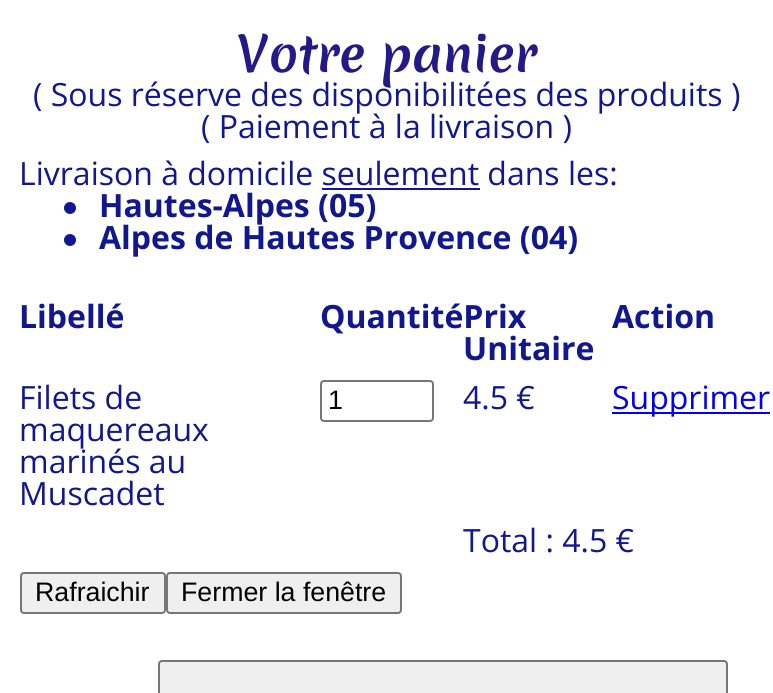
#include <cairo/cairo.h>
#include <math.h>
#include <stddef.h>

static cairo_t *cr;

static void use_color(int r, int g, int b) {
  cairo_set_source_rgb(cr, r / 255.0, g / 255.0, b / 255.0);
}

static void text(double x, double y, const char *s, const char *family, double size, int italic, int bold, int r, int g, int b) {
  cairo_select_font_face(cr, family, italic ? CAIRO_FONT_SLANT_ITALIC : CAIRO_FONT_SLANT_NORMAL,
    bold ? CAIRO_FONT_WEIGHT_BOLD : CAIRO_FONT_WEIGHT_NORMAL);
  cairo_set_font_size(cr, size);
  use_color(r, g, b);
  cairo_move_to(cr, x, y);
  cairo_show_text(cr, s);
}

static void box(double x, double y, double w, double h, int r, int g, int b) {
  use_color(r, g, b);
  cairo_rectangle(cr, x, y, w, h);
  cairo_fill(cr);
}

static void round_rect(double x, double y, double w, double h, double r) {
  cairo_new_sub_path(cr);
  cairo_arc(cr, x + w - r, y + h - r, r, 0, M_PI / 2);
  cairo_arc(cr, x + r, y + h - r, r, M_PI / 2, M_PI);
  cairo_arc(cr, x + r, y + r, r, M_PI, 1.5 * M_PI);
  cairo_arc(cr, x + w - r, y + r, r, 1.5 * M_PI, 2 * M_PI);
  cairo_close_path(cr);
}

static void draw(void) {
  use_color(255, 255, 255);
  cairo_paint(cr);
  box(322, 188, 158, 2, 17, 23, 142);
  cairo_arc(cr, 70, 208, 6, 0, 2 * M_PI);
  cairo_fill(cr);
  cairo_arc(cr, 70, 240, 6, 0, 2 * M_PI);
  cairo_fill(cr);
  round_rect(321, 381, 112, 40, 3);
  use_color(118, 118, 118);
  cairo_stroke(cr);
  box(612, 412, 158, 2, 0, 0, 238);
  use_color(239, 239, 239);
  round_rect(21, 573, 144, 40, 3);
  cairo_fill_preserve(cr);
  use_color(118, 118, 118);
  cairo_stroke(cr);
  use_color(239, 239, 239);
  round_rect(167, 573, 234, 40, 3);
  cairo_fill_preserve(cr);
  use_color(118, 118, 118);
  cairo_stroke(cr);
  use_color(239, 239, 239);
  round_rect(159, 661, 568, 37, 3);
  cairo_fill_preserve(cr);
  use_color(118, 118, 118);
  cairo_stroke(cr);
  text(237, 72, "Votre panier", "Merienda", 48, 0, 1, 35, 26, 135);
  text(33, 106, "( Sous réserve des disponibilitées des produits )", "Open Sans", 32, 0, 0, 17, 23, 142);
  text(201, 138, "( Paiement à la livraison )", "Open Sans", 32, 0, 0, 17, 23, 142);
  text(19, 185, "Livraison à domicile seulement dans les:", "Open Sans", 32, 0, 0, 17, 23, 142);
  text(99, 217, "Hautes-Alpes (05)", "Open Sans", 32, 0, 1, 17, 23, 142);
  text(99, 249, "Alpes de Hautes Provence (04)", "Open Sans", 32, 0, 1, 17, 23, 142);
  text(19, 328, "Libellé", "Open Sans", 32, 0, 1, 17, 23, 142);
  text(320, 328, "QuantitéPrix", "Open Sans", 32, 0, 1, 17, 23, 142);
  text(612, 328, "Action", "Open Sans", 32, 0, 1, 17, 23, 142);
  text(463, 360, "Unitaire", "Open Sans", 32, 0, 1, 17, 23, 142);
  text(19, 409, "Filets de", "Open Sans", 32, 0, 0, 17, 23, 142);
  text(19, 441, "maquereaux", "Open Sans", 32, 0, 0, 17, 23, 142);
  text(19, 473, "marinés au", "Open Sans", 32, 0, 0, 17, 23, 142);
  text(19, 505, "Muscadet", "Open Sans", 32, 0, 0, 17, 23, 142);
  text(328, 409, "1", "Liberation Sans", 26.75, 0, 0, 0, 0, 0);
  text(463, 409, "4.5 €", "Open Sans", 32, 0, 0, 17, 23, 142);
  text(612, 409, "Supprimer", "Open Sans", 32, 0, 0, 0, 0, 238);
  text(463, 552, "Total : 4.5 €", "Open Sans", 32, 0, 0, 17, 23, 142);
  text(35, 601, "Rafraichir", "Liberation Sans", 26.75, 0, 0, 0, 0, 0);
  text(181, 601, "Fermer la fenêtre", "Liberation Sans", 26.75, 0, 0, 0, 0, 0);
}

int main(void) {
  cairo_surface_t *surface = cairo_image_surface_create(CAIRO_FORMAT_RGB24, 773, 693);
  cr = cairo_create(surface);
  cairo_font_options_t *options = cairo_font_options_create();
  cairo_font_options_set_hint_metrics(options, CAIRO_HINT_METRICS_OFF);
  cairo_font_options_set_hint_style(options, CAIRO_HINT_STYLE_NONE);
  cairo_set_font_options(cr, options);
  cairo_set_miter_limit(cr, 4);
  draw();
  cairo_surface_write_to_png(surface, "out.png");
  cairo_font_options_destroy(options);
  cairo_destroy(cr);
  cairo_surface_destroy(surface);
  return 0;
}
